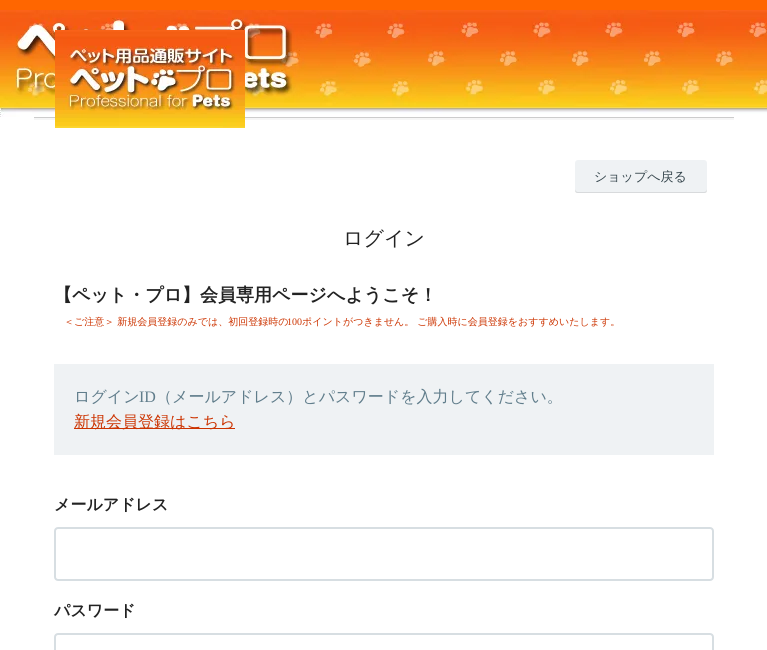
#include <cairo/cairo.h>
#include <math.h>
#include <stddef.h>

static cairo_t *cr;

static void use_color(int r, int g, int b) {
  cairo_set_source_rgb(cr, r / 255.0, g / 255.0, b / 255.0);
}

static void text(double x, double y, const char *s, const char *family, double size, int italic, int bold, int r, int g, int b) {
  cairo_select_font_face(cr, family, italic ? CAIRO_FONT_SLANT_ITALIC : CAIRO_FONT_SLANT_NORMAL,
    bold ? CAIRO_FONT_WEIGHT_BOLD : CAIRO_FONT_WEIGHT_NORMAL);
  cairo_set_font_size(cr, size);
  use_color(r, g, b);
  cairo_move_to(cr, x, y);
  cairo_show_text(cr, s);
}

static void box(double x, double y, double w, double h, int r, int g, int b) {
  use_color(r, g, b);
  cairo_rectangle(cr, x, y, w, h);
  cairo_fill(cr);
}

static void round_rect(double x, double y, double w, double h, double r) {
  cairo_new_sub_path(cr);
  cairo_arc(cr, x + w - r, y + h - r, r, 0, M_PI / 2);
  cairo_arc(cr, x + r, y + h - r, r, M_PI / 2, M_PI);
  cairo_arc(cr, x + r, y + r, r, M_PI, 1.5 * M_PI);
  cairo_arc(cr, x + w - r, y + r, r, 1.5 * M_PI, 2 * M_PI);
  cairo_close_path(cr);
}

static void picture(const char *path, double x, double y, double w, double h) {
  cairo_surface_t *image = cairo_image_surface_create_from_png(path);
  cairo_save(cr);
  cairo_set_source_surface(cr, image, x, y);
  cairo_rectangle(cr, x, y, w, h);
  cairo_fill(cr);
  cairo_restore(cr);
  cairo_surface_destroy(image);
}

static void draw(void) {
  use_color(255, 255, 255);
  cairo_paint(cr);
  box(0, 0, 767, 10, 255, 102, 0);
  picture("img_01.png", 0, 10, 767, 107);
  box(34, 117, 700, 1, 204, 204, 204);
  box(34, 118, 700, 2, 246, 246, 246);
  picture("img_02.png", 55, 30, 190, 98);
  use_color(239, 242, 244);
  round_rect(575, 160, 132, 33, 3);
  cairo_fill(cr);
  cairo_set_source_rgba(cr, 0, 0, 0, 0.1);
  cairo_new_path(cr);
  cairo_move_to(cr, 575, 189);
  cairo_curve_to(cr, 575, 191, 575, 193, 577, 193);
  cairo_line_to(cr, 705, 193);
  cairo_curve_to(cr, 707, 193, 707, 191, 707, 189);
  cairo_curve_to(cr, 707, 190, 706, 192, 704, 192);
  cairo_line_to(cr, 578, 192);
  cairo_curve_to(cr, 576, 192, 575, 190, 575, 189);
  cairo_close_path(cr);
  cairo_fill(cr);
  box(54, 364, 660, 91, 239, 242, 244);
  box(74, 428, 161, 1, 204, 51, 0);
  round_rect(55, 528, 658, 52, 3);
  use_color(215, 222, 226);
  cairo_stroke(cr);
  round_rect(55, 634, 658, 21, 3);
  cairo_stroke(cr);
  text(594, 181, "ショップへ戻る", "WenQuanYi Zen Hei Medium", 13, 0, 0, 53, 69, 76);
  text(343, 245, "ログイン", "WenQuanYi Zen Hei Medium", 20, 0, 0, 34, 34, 34);
  text(54, 301, "【ペット・プロ】会員専用ページへようこそ！", "WenQuanYi Zen Hei", 18, 0, 1, 34, 34, 34);
  text(64, 325, "＜ご注意＞ 新規会員登録のみでは、初回登録時の", "WenQuanYi Zen Hei Medium", 10, 0, 0, 204, 51, 0);
  text(287, 325, "100", "Liberation Serif", 10, 0, 0, 204, 51, 0);
  text(302, 325, "ポイントがつきません。 ご購入時に会員登録をおすすめいたします。", "WenQuanYi Zen Hei Medium", 10, 0, 0, 204, 51, 0);
  text(74, 402, "ログイン", "WenQuanYi Zen Hei Medium", 16, 0, 0, 96, 125, 139);
  text(139, 402, "ID", "Liberation Serif", 16, 0, 0, 96, 125, 139);
  text(156, 402, "（メールアドレス）とパスワードを入力してください。", "WenQuanYi Zen Hei Medium", 16, 0, 0, 96, 125, 139);
  text(74, 427, "新規会員登録はこちら", "WenQuanYi Zen Hei Medium", 16, 0, 0, 204, 51, 0);
  text(54, 510, "メールアドレス", "WenQuanYi Zen Hei", 16, 0, 1, 34, 34, 34);
  text(54, 616, "パスワード", "WenQuanYi Zen Hei", 16, 0, 1, 34, 34, 34);
}

int main(void) {
  cairo_surface_t *surface = cairo_image_surface_create(CAIRO_FORMAT_RGB24, 767, 650);
  cr = cairo_create(surface);
  cairo_font_options_t *options = cairo_font_options_create();
  cairo_font_options_set_hint_metrics(options, CAIRO_HINT_METRICS_OFF);
  cairo_font_options_set_hint_style(options, CAIRO_HINT_STYLE_NONE);
  cairo_set_font_options(cr, options);
  cairo_set_miter_limit(cr, 4);
  draw();
  cairo_surface_write_to_png(surface, "out.png");
  cairo_font_options_destroy(options);
  cairo_destroy(cr);
  cairo_surface_destroy(surface);
  return 0;
}
